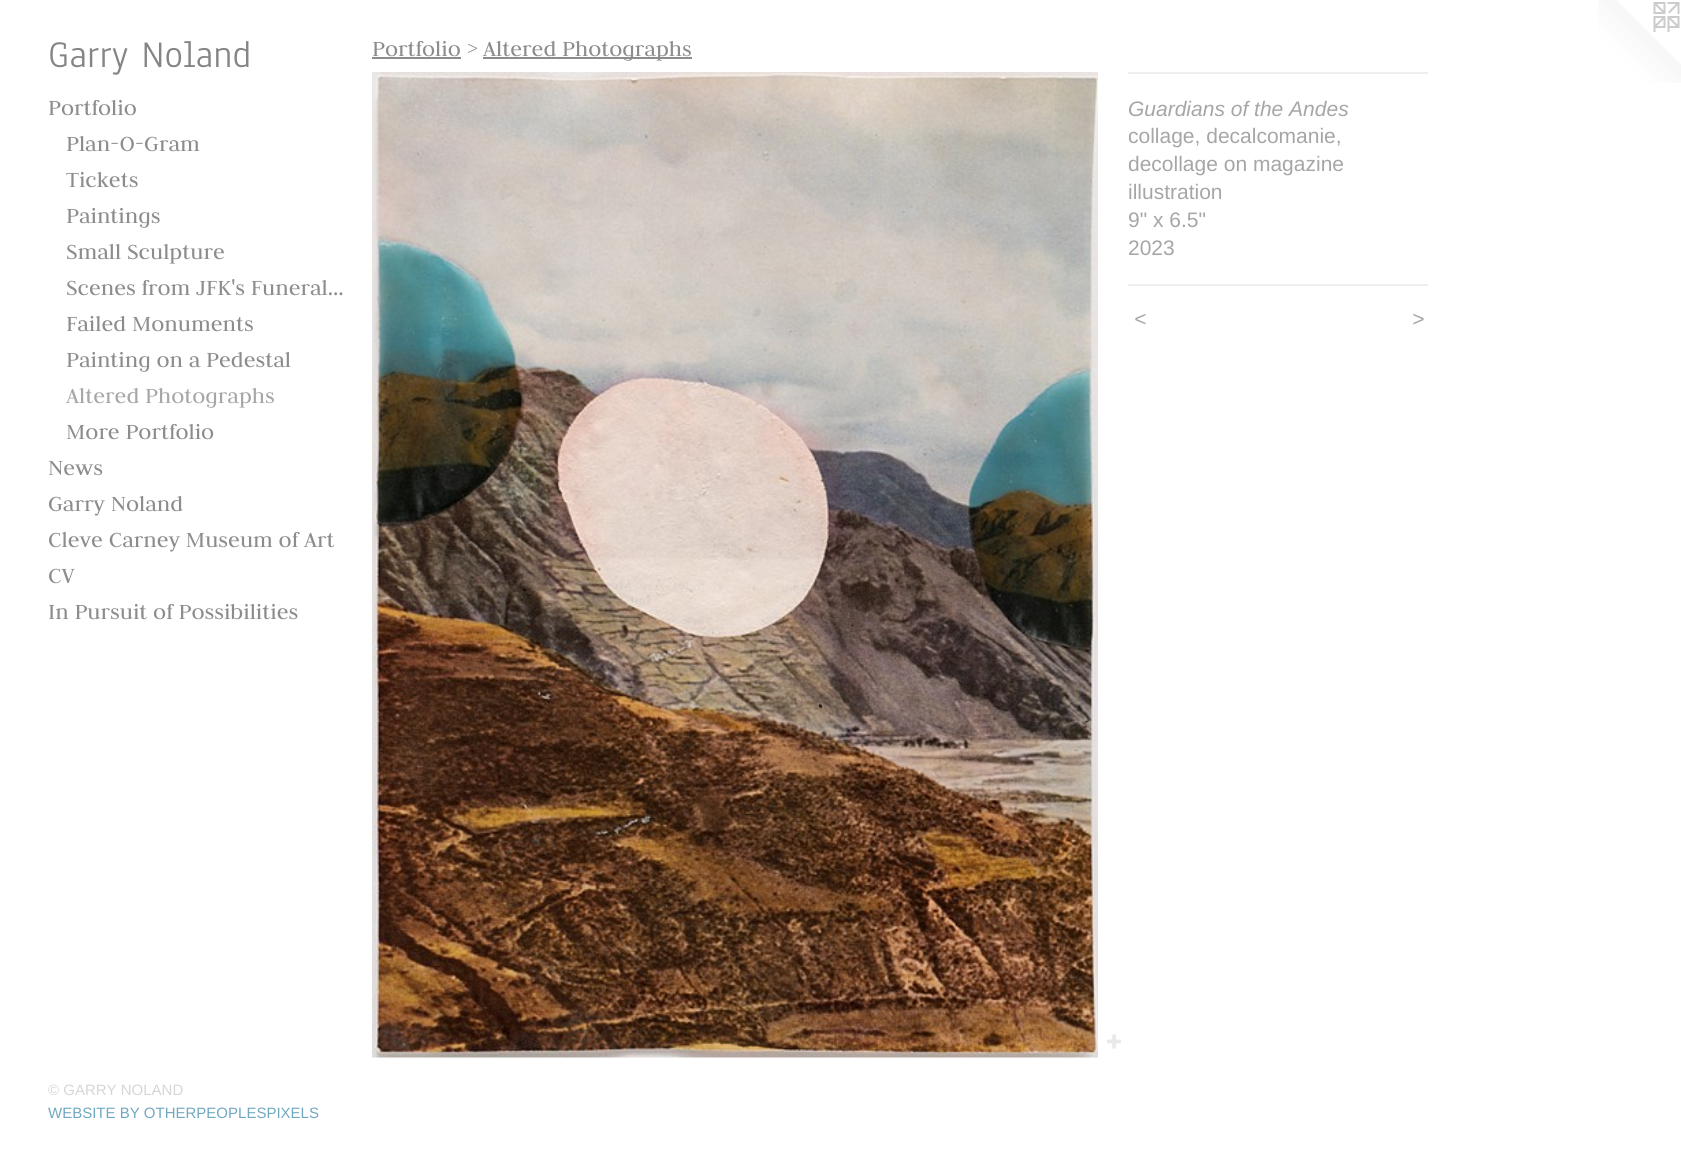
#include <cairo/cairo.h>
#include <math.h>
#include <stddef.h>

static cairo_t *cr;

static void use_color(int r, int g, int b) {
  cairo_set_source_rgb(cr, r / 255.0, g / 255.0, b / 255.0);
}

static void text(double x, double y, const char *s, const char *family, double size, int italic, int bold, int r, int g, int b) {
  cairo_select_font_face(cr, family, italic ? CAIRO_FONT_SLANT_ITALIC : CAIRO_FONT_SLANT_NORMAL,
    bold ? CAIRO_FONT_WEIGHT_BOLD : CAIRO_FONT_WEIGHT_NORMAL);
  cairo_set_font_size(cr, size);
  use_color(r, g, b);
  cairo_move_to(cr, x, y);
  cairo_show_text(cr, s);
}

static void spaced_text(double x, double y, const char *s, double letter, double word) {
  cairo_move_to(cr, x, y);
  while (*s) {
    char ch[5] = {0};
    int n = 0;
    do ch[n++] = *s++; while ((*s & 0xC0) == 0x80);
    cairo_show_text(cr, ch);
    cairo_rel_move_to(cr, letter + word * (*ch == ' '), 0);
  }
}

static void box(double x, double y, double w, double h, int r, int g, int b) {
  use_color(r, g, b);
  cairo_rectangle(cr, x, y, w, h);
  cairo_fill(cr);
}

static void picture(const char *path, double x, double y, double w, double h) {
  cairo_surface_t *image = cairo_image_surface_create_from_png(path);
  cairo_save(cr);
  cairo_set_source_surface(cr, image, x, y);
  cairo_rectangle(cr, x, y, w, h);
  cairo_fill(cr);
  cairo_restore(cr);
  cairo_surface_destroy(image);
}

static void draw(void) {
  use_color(255, 255, 255);
  cairo_paint(cr);
  box(372, 57, 89, 2, 140, 140, 140);
  box(483, 57, 209, 2, 140, 140, 140);
  picture("img_01.png", 372, 72, 726, 986);
  picture("img_02.png", 1107, 1034, 14, 15);
  box(1128, 72, 300, 2, 238, 238, 238);
  box(1128, 284, 300, 2, 238, 238, 238);
  picture("img_03.png", 1598, 0, 83, 83);
  text(48, 67, "Garry Noland", "Anaheim", 39, 0, 0, 133, 133, 133);
  text(48, 115, "Portfolio", "Judson", 24, 0, 0, 140, 140, 140);
  text(66, 151, "Plan-O-Gram", "Judson", 24, 0, 0, 140, 140, 140);
  text(66, 187, "Tickets", "Judson", 24, 0, 0, 140, 140, 140);
  text(66, 223, "Paintings", "Judson", 24, 0, 0, 140, 140, 140);
  text(66, 259, "Small Sculpture", "Judson", 24, 0, 0, 140, 140, 140);
  text(66, 295, "Scenes from JFK's Funeral…", "Judson", 24, 0, 0, 140, 140, 140);
  text(66, 331, "Failed Monuments", "Judson", 24, 0, 0, 140, 140, 140);
  text(66, 367, "Painting on a Pedestal", "Judson", 24, 0, 0, 140, 140, 140);
  text(66, 403, "Altered Photographs", "Judson", 24, 0, 0, 166, 166, 166);
  text(66, 439, "More Portfolio", "Judson", 24, 0, 0, 140, 140, 140);
  text(48, 475, "News", "Judson", 24, 0, 0, 140, 140, 140);
  text(48, 511, "Garry Noland", "Judson", 24, 0, 0, 140, 140, 140);
  text(48, 547, "Cleve Carney Museum of Art", "Judson", 24, 0, 0, 140, 140, 140);
  text(48, 583, "CV", "Judson", 24, 0, 0, 140, 140, 140);
  text(48, 619, "In Pursuit of Possibilities", "Judson", 24, 0, 0, 140, 140, 140);
  text(48, 1095, "© GARRY NOLAND", "Liberation Sans", 15, 0, 0, 214, 214, 214);
  text(48, 1118, "WEBSITE BY OTHERPEOPLESPIXELS", "Liberation Sans", 15, 0, 0, 112, 168, 192);
  text(372, 56, "Portfolio >", "Judson", 24, 0, 0, 140, 140, 140);
  text(483, 56, "Altered Photographs", "Judson", 24, 0, 0, 140, 140, 140);
  text(1128, 116, "Guardians of the Andes", "Liberation Sans", 21, 1, 0, 166, 166, 166);
  text(1128, 143, "collage, decalcomanie,", "Liberation Sans", 21, 0, 0, 166, 166, 166);
  text(1128, 171, "decollage on magazine", "Liberation Sans", 21, 0, 0, 166, 166, 166);
  text(1128, 199, "illustration", "Liberation Sans", 21, 0, 0, 166, 166, 166);
  text(1128, 227, "9\" x 6.5\"", "Liberation Sans", 21, 0, 0, 166, 166, 166);
  text(1128, 255, "2023", "Liberation Sans", 21, 0, 0, 166, 166, 166);
  cairo_select_font_face(cr, "Liberation Sans", CAIRO_FONT_SLANT_ITALIC, CAIRO_FONT_WEIGHT_NORMAL);
  spaced_text(1134, 326, "<", 2, 0);
  spaced_text(1412, 326, ">", 2, 0);
}

int main(void) {
  cairo_surface_t *surface = cairo_image_surface_create(CAIRO_FORMAT_RGB24, 1681, 1158);
  cr = cairo_create(surface);
  cairo_font_options_t *options = cairo_font_options_create();
  cairo_font_options_set_hint_metrics(options, CAIRO_HINT_METRICS_OFF);
  cairo_font_options_set_hint_style(options, CAIRO_HINT_STYLE_NONE);
  cairo_set_font_options(cr, options);
  cairo_set_miter_limit(cr, 4);
  draw();
  cairo_surface_write_to_png(surface, "out.png");
  cairo_font_options_destroy(options);
  cairo_destroy(cr);
  cairo_surface_destroy(surface);
  return 0;
}
